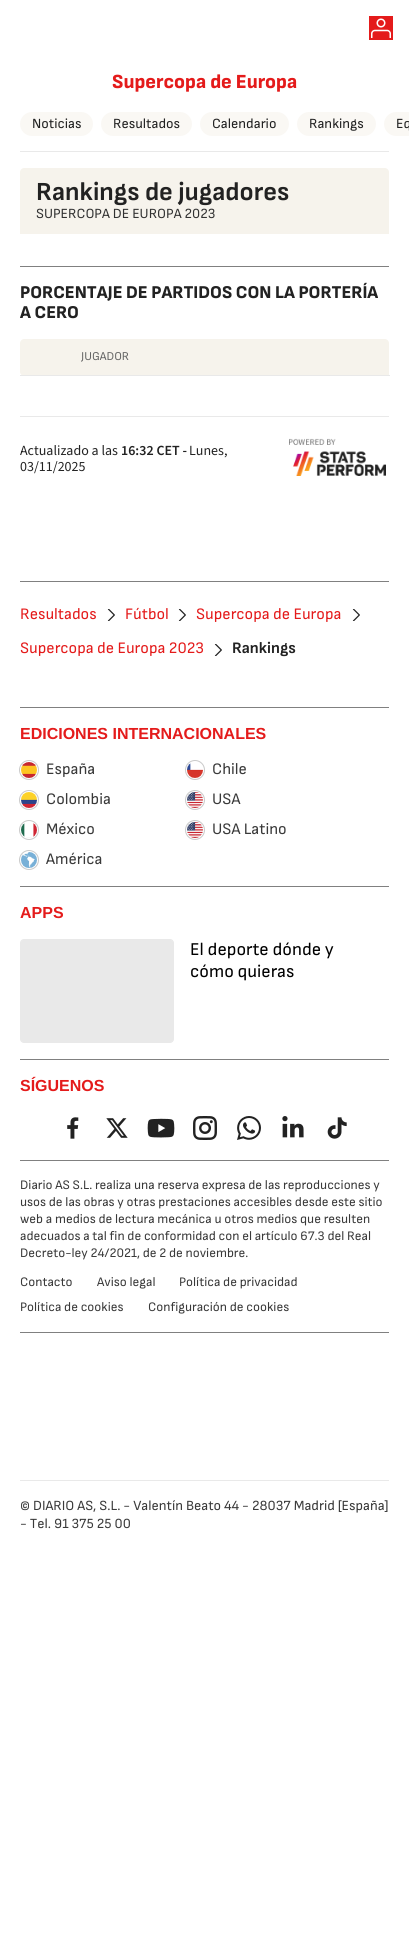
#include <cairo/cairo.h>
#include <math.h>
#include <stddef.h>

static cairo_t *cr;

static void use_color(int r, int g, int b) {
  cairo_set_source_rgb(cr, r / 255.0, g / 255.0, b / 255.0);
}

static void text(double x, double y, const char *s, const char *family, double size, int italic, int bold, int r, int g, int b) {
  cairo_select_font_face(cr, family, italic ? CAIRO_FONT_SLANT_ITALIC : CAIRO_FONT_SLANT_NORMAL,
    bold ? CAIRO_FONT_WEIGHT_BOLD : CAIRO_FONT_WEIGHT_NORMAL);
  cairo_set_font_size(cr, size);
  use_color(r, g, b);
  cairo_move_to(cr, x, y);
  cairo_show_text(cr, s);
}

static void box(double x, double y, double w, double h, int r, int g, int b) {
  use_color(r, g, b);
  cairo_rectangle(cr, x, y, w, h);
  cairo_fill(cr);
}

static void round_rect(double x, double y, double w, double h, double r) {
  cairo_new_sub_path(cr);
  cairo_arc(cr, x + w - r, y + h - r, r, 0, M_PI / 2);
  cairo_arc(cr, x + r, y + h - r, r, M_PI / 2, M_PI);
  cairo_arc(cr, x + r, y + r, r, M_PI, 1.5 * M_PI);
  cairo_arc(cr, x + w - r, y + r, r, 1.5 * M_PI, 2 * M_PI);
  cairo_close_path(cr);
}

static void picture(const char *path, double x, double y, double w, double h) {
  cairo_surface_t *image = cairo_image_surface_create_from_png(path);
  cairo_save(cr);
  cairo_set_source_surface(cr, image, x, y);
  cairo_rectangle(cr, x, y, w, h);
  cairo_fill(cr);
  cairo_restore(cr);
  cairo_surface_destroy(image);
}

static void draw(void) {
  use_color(255, 255, 255);
  cairo_paint(cr);
  box(369, 16, 24, 24, 228, 27, 27);
  picture("img_01.png", 371, 18, 20, 20);
  use_color(250, 248, 244);
  round_rect(20, 112, 73, 24, 12);
  cairo_fill(cr);
  round_rect(101, 112, 91, 24, 12);
  cairo_fill(cr);
  round_rect(200, 112, 89, 24, 12);
  cairo_fill(cr);
  round_rect(297, 112, 79, 24, 12);
  cairo_fill(cr);
  cairo_new_path(cr);
  cairo_move_to(cr, 396, 112);
  cairo_line_to(cr, 409, 112);
  cairo_line_to(cr, 409, 136);
  cairo_line_to(cr, 396, 136);
  cairo_curve_to(cr, 389.5, 136, 384, 130.5, 384, 124);
  cairo_curve_to(cr, 384, 117.5, 389.5, 112, 396, 112);
  cairo_close_path(cr);
  cairo_fill(cr);
  box(20, 151, 369, 1, 233, 233, 233);
  use_color(246, 243, 236);
  cairo_new_path(cr);
  cairo_move_to(cr, 24, 168);
  cairo_line_to(cr, 385, 168);
  cairo_curve_to(cr, 387, 168, 389, 170, 389, 172);
  cairo_line_to(cr, 389, 234);
  cairo_line_to(cr, 20, 234);
  cairo_line_to(cr, 20, 172);
  cairo_curve_to(cr, 20, 170, 22, 168, 24, 168);
  cairo_close_path(cr);
  cairo_fill(cr);
  box(20, 266, 369, 1, 128, 128, 128);
  use_color(246, 243, 236);
  cairo_new_path(cr);
  cairo_move_to(cr, 24, 339);
  cairo_line_to(cr, 385, 339);
  cairo_curve_to(cr, 387, 339, 389, 341, 389, 343);
  cairo_line_to(cr, 389, 376);
  cairo_line_to(cr, 24, 376);
  cairo_curve_to(cr, 22, 376, 20, 374, 20, 372);
  cairo_line_to(cr, 20, 343);
  cairo_curve_to(cr, 20, 341, 22, 339, 24, 339);
  cairo_close_path(cr);
  cairo_fill(cr);
  box(20, 375, 370, 1, 233, 233, 233);
  box(20, 416, 369, 1, 233, 233, 233);
  picture("img_02.png", 289, 438, 97, 38);
  box(20, 581, 369, 1, 128, 128, 128);
  picture("img_03.png", 107, 609, 8, 12);
  picture("img_03.png", 178, 609, 8, 12);
  picture("img_03.png", 352, 609, 8, 12);
  picture("img_03.png", 214, 644, 8, 12);
  box(20, 707, 369, 1, 128, 128, 128);
  cairo_arc(cr, 29, 770, 9.5, 0, 2 * M_PI);
  use_color(201, 201, 201);
  cairo_set_line_width(cr, 1);
  cairo_stroke(cr);
  picture("img_04.png", 21, 762, 16, 16);
  cairo_arc(cr, 195, 770, 9.5, 0, 2 * M_PI);
  cairo_stroke(cr);
  picture("img_05.png", 187, 763, 16, 15);
  cairo_arc(cr, 29, 800, 9.5, 0, 2 * M_PI);
  cairo_stroke(cr);
  picture("img_06.png", 21, 792, 16, 16);
  cairo_arc(cr, 195, 800, 9.5, 0, 2 * M_PI);
  cairo_stroke(cr);
  picture("img_07.png", 187, 792, 16, 16);
  cairo_arc(cr, 29, 830, 9.5, 0, 2 * M_PI);
  cairo_stroke(cr);
  picture("img_08.png", 21, 823, 16, 15);
  cairo_arc(cr, 195, 830, 9.5, 0, 2 * M_PI);
  cairo_stroke(cr);
  picture("img_09.png", 187, 822, 16, 16);
  cairo_arc(cr, 29, 860, 9.5, 0, 2 * M_PI);
  cairo_stroke(cr);
  picture("img_10.png", 21, 852, 16, 16);
  box(20, 886, 369, 1, 128, 128, 128);
  use_color(233, 233, 233);
  round_rect(20.5, 939.5, 153, 103, 3.5);
  cairo_fill_preserve(cr);
  cairo_stroke(cr);
  box(20, 1059, 369, 1, 128, 128, 128);
  picture("img_11.png", 67, 1117, 12, 22);
  picture("img_12.png", 106, 1118, 22, 20);
  picture("img_13.png", 147, 1118, 28, 20);
  picture("img_14.png", 193, 1116, 24, 24);
  picture("img_15.png", 237, 1116, 24, 24);
  picture("img_16.png", 282, 1116, 22, 22);
  picture("img_17.png", 327, 1117, 20, 22);
  box(20, 1160, 369, 1, 128, 128, 128);
  box(20, 1332, 369, 1, 128, 128, 128);
  box(20, 1480, 369, 1, 233, 233, 233);
  text(112, 88, "Supercopa de Europa", "Sofia Sans ExtraBold", 20, 0, 0, 228, 27, 27);
  text(32, 128, "Noticias", "Sofia Sans", 14, 0, 0, 34, 34, 34);
  text(113, 128, "Resultados", "Sofia Sans", 14, 0, 0, 34, 34, 34);
  text(212, 128, "Calendario", "Sofia Sans", 14, 0, 0, 34, 34, 34);
  text(309, 128, "Rankings", "Sofia Sans", 14, 0, 0, 34, 34, 34);
  text(396, 128, "Eq", "Sofia Sans", 14, 0, 0, 34, 34, 34);
  text(36, 200, "Rankings de jugadores", "Sofia Sans", 26, 0, 1, 34, 34, 34);
  text(36, 218, "SUPERCOPA DE EUROPA 2023", "Sofia Sans", 14, 0, 0, 50, 50, 50);
  text(20, 298, "PORCENTAJE DE PARTIDOS CON LA PORTERÍA", "Sofia Sans ExtraBold", 18, 0, 0, 34, 34, 34);
  text(20, 318, "A CERO", "Sofia Sans ExtraBold", 18, 0, 0, 34, 34, 34);
  text(81, 360, "JUGADOR", "Sofia Sans", 12, 0, 0, 101, 101, 101);
  text(20, 455, "Actualizado a las", "Source Sans 3 ExtraLight", 14, 0, 0, 34, 34, 34);
  text(121, 455, "16:32 CET -", "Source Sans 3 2 ExtraLight", 14, 0, 0, 34, 34, 34);
  text(189, 455, "Lunes,", "Source Sans 3 ExtraLight", 14, 0, 0, 34, 34, 34);
  text(20, 471, "03/11/2025", "Source Sans 3 ExtraLight", 14, 0, 0, 34, 34, 34);
  text(20, 619, "Resultados", "Sofia Sans", 16, 0, 0, 228, 27, 27);
  text(125, 619, "Fútbol", "Sofia Sans", 16, 0, 0, 228, 27, 27);
  text(196, 619, "Supercopa de Europa", "Sofia Sans", 16, 0, 0, 228, 27, 27);
  text(20, 653, "Supercopa de Europa 2023", "Sofia Sans", 16, 0, 0, 228, 27, 27);
  text(232, 653, "Rankings", "Sofia Sans", 16, 0, 1, 34, 34, 34);
  text(20, 739, "EDICIONES INTERNACIONALES", "Liberation Sans", 16, 0, 1, 228, 27, 27);
  text(46, 774, "España", "Sofia Sans", 16, 0, 0, 58, 58, 58);
  text(212, 774, "Chile", "Sofia Sans", 16, 0, 0, 58, 58, 58);
  text(46, 804, "Colombia", "Sofia Sans", 16, 0, 0, 58, 58, 58);
  text(212, 804, "USA", "Sofia Sans", 16, 0, 0, 58, 58, 58);
  text(46, 834, "México", "Sofia Sans", 16, 0, 0, 58, 58, 58);
  text(212, 834, "USA Latino", "Sofia Sans", 16, 0, 0, 58, 58, 58);
  text(46, 864, "América", "Sofia Sans", 16, 0, 0, 58, 58, 58);
  text(20, 918, "APPS", "Liberation Sans", 16, 0, 1, 228, 27, 27);
  text(190, 955, "El deporte dónde y", "Sofia Sans", 18, 0, 0, 0, 0, 0);
  text(190, 977, "cómo quieras", "Sofia Sans", 18, 0, 0, 0, 0, 0);
  text(20, 1091, "SÍGUENOS", "Liberation Sans", 16, 0, 1, 228, 27, 27);
  text(20, 1189, "Diario AS S.L. realiza una reserva expresa de las reproducciones y", "Sofia Sans", 13, 0, 0, 58, 58, 58);
  text(20, 1206, "usos de las obras y otras prestaciones accesibles desde este sitio", "Sofia Sans", 13, 0, 0, 58, 58, 58);
  text(20, 1223, "web a medios de lectura mecánica u otros medios que resulten", "Sofia Sans", 13, 0, 0, 58, 58, 58);
  text(20, 1240, "adecuados a tal fin de conformidad con el artículo 67.3 del Real", "Sofia Sans", 13, 0, 0, 58, 58, 58);
  text(20, 1257, "Decreto-ley 24/2021, de 2 de noviembre.", "Sofia Sans", 13, 0, 0, 58, 58, 58);
  text(20, 1286, "Contacto", "Sofia Sans", 13, 0, 0, 58, 58, 58);
  text(97, 1286, "Aviso legal", "Sofia Sans", 13, 0, 0, 58, 58, 58);
  text(179, 1286, "Política de privacidad", "Sofia Sans", 13, 0, 0, 58, 58, 58);
  text(20, 1311, "Política de cookies", "Sofia Sans", 13, 0, 0, 58, 58, 58);
  text(148, 1311, "Configuración de cookies", "Sofia Sans", 13, 0, 0, 58, 58, 58);
  text(20, 1510, "© DIARIO AS, S.L. - Valentín Beato 44 - 28037 Madrid [España]", "Sofia Sans", 14, 0, 0, 58, 58, 58);
  text(20, 1528, "- Tel. 91 375 25 00", "Sofia Sans", 14, 0, 0, 58, 58, 58);
}

int main(void) {
  cairo_surface_t *surface = cairo_image_surface_create(CAIRO_FORMAT_RGB24, 409, 1959);
  cr = cairo_create(surface);
  cairo_font_options_t *options = cairo_font_options_create();
  cairo_font_options_set_hint_metrics(options, CAIRO_HINT_METRICS_OFF);
  cairo_font_options_set_hint_style(options, CAIRO_HINT_STYLE_NONE);
  cairo_set_font_options(cr, options);
  cairo_set_miter_limit(cr, 4);
  draw();
  cairo_surface_write_to_png(surface, "out.png");
  cairo_font_options_destroy(options);
  cairo_destroy(cr);
  cairo_surface_destroy(surface);
  return 0;
}
